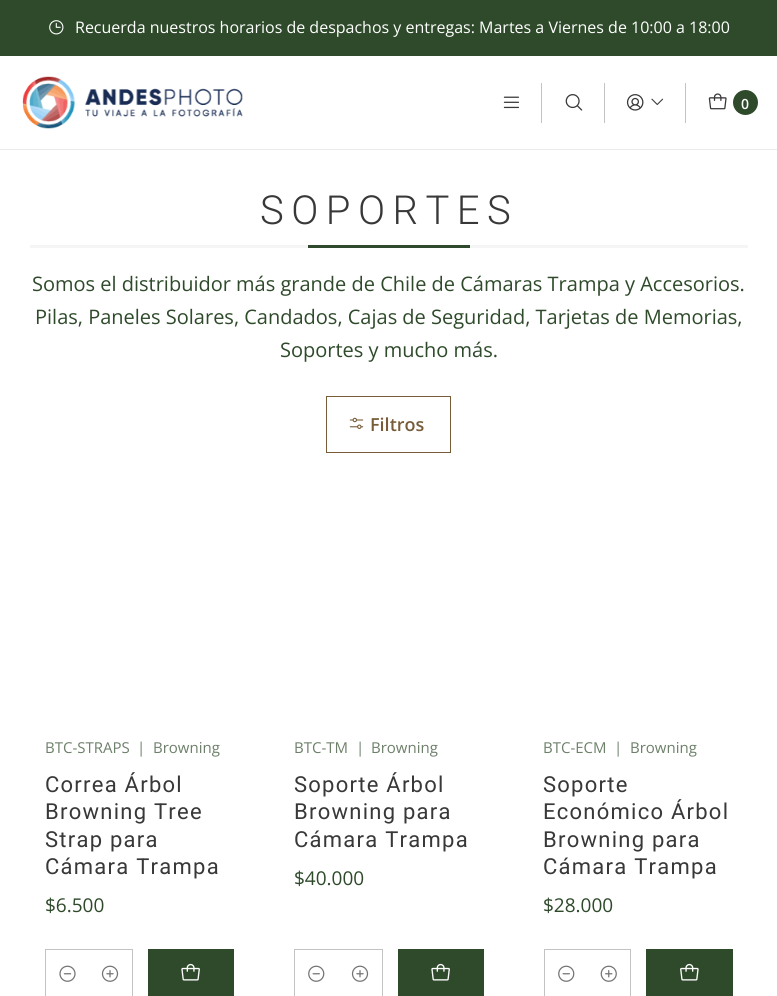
#include <cairo/cairo.h>
#include <math.h>
#include <stddef.h>

static cairo_t *cr;

static void use_color(int r, int g, int b) {
  cairo_set_source_rgb(cr, r / 255.0, g / 255.0, b / 255.0);
}

static void text(double x, double y, const char *s, const char *family, double size, int italic, int bold, int r, int g, int b) {
  cairo_select_font_face(cr, family, italic ? CAIRO_FONT_SLANT_ITALIC : CAIRO_FONT_SLANT_NORMAL,
    bold ? CAIRO_FONT_WEIGHT_BOLD : CAIRO_FONT_WEIGHT_NORMAL);
  cairo_set_font_size(cr, size);
  use_color(r, g, b);
  cairo_move_to(cr, x, y);
  cairo_show_text(cr, s);
}

static void spaced_text(double x, double y, const char *s, double letter, double word) {
  cairo_move_to(cr, x, y);
  while (*s) {
    char ch[5] = {0};
    int n = 0;
    do ch[n++] = *s++; while ((*s & 0xC0) == 0x80);
    cairo_show_text(cr, ch);
    cairo_rel_move_to(cr, letter + word * (*ch == ' '), 0);
  }
}

static void box(double x, double y, double w, double h, int r, int g, int b) {
  use_color(r, g, b);
  cairo_rectangle(cr, x, y, w, h);
  cairo_fill(cr);
}

static void picture(const char *path, double x, double y, double w, double h) {
  cairo_surface_t *image = cairo_image_surface_create_from_png(path);
  cairo_save(cr);
  cairo_set_source_surface(cr, image, x, y);
  cairo_rectangle(cr, x, y, w, h);
  cairo_fill(cr);
  cairo_restore(cr);
  cairo_surface_destroy(image);
}

static void draw(void) {
  use_color(255, 255, 255);
  cairo_paint(cr);
  box(30, 245, 718, 3, 245, 245, 245);
  box(0, 0, 777, 56, 46, 74, 42);
  picture("img_01.png", 49, 20, 15, 15);
  box(0, 149, 777, 1, 235, 235, 235);
  picture("img_02.png", 22, 76, 221, 53);
  picture("img_03.png", 503, 96, 17, 13);
  box(541, 83, 1, 40, 195, 195, 195);
  picture("img_04.png", 565, 94, 18, 17);
  box(604, 83, 1, 40, 195, 195, 195);
  picture("img_05.png", 626, 94, 18, 17);
  picture("img_06.png", 651, 98, 13, 7);
  box(685, 83, 1, 40, 195, 195, 195);
  picture("img_07.png", 708, 93, 19, 17);
  use_color(46, 74, 42);
  cairo_arc(cr, 745.5, 102.5, 12.5, 0, 2 * M_PI);
  cairo_fill(cr);
  box(308, 245, 162, 3, 46, 73, 43);
  cairo_rectangle(cr, 326.5, 396.5, 124, 56);
  use_color(120, 92, 58);
  cairo_set_line_width(cr, 1);
  cairo_stroke(cr);
  picture("img_08.png", 349, 417, 15, 12);
  cairo_rectangle(cr, 45.5, 949.5, 87, 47);
  use_color(195, 195, 195);
  cairo_stroke(cr);
  picture("img_09.png", 59, 965, 17, 17);
  picture("img_10.png", 101, 965, 18, 17);
  box(148, 949, 86, 47, 46, 74, 42);
  picture("img_11.png", 181, 963, 19, 18);
  cairo_rectangle(cr, 294.5, 949.5, 88, 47);
  use_color(195, 195, 195);
  cairo_stroke(cr);
  picture("img_12.png", 308, 965, 17, 17);
  picture("img_10.png", 351, 965, 18, 17);
  box(398, 949, 86, 47, 46, 74, 42);
  picture("img_11.png", 431, 963, 19, 18);
  cairo_rectangle(cr, 544.5, 949.5, 86, 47);
  use_color(195, 195, 195);
  cairo_stroke(cr);
  picture("img_12.png", 558, 965, 17, 17);
  picture("img_13.png", 600, 965, 17, 17);
  box(646, 949, 87, 47, 46, 74, 42);
  picture("img_14.png", 680, 963, 19, 18);
  text(75, 33, "Recuerda nuestros horarios de despachos y entregas: Martes a Viernes de 10:00 a 18:00", "Open Sans", 16, 0, 0, 255, 255, 255);
  text(741, 109, "0", "Open Sans SemiBold", 14, 0, 0, 255, 255, 255);
  cairo_select_font_face(cr, "Roboto Light", CAIRO_FONT_SLANT_NORMAL, CAIRO_FONT_WEIGHT_NORMAL);
  cairo_set_font_size(cr, 40);
  use_color(56, 56, 56);
  spaced_text(260, 224, "SOPORTES", 7.5, 0);
  text(32, 291, "Somos el distribuidor más grande de Chile de Cámaras Trampa y Accesorios.", "Open Sans", 20, 0, 0, 46, 74, 42);
  text(35, 324, "Pilas, Paneles Solares, Candados, Cajas de Seguridad, Tarjetas de Memorias,", "Open Sans", 20, 0, 0, 46, 74, 42);
  text(280, 357, "Soportes y mucho más.", "Open Sans", 20, 0, 0, 46, 74, 42);
  text(370, 431, "Filtros", "Open Sans SemiBold", 18, 0, 0, 120, 92, 58);
  text(45, 753, "BTC-STRAPS", "Open Sans", 15, 0, 0, 109, 128, 106);
  text(137, 753, "|", "Open Sans", 15, 0, 0, 109, 128, 106);
  text(153, 753, "Browning", "Open Sans", 15, 0, 0, 109, 128, 106);
  cairo_select_font_face(cr, "Roboto", CAIRO_FONT_SLANT_NORMAL, CAIRO_FONT_WEIGHT_NORMAL);
  cairo_set_font_size(cr, 22);
  use_color(56, 56, 56);
  spaced_text(45, 792, "Correa Árbol", 1.25, 0);
  spaced_text(45, 819, "Browning Tree", 1.25, 0);
  spaced_text(45, 847, "Strap para", 1.25, 0);
  spaced_text(45, 874, "Cámara Trampa", 1.25, 0);
  text(45, 912, "$6.500", "Open Sans", 19, 0, 0, 46, 74, 42);
  text(294, 753, "BTC-TM", "Open Sans", 15, 0, 0, 109, 128, 106);
  text(356, 753, "|", "Open Sans", 15, 0, 0, 109, 128, 106);
  text(371, 753, "Browning", "Open Sans", 15, 0, 0, 109, 128, 106);
  cairo_select_font_face(cr, "Roboto", CAIRO_FONT_SLANT_NORMAL, CAIRO_FONT_WEIGHT_NORMAL);
  cairo_set_font_size(cr, 22);
  use_color(56, 56, 56);
  spaced_text(294, 792, "Soporte Árbol", 1.25, 0);
  spaced_text(294, 819, "Browning para", 1.25, 0);
  spaced_text(294, 847, "Cámara Trampa", 1.25, 0);
  text(294, 885, "$40.000", "Open Sans", 19, 0, 0, 46, 74, 42);
  text(543, 753, "BTC-ECM", "Open Sans", 15, 0, 0, 109, 128, 106);
  text(614, 753, "|", "Open Sans", 15, 0, 0, 109, 128, 106);
  text(630, 753, "Browning", "Open Sans", 15, 0, 0, 109, 128, 106);
  cairo_select_font_face(cr, "Roboto", CAIRO_FONT_SLANT_NORMAL, CAIRO_FONT_WEIGHT_NORMAL);
  cairo_set_font_size(cr, 22);
  use_color(56, 56, 56);
  spaced_text(543, 792, "Soporte", 1.25, 0);
  spaced_text(543, 819, "Económico Árbol", 1.25, 0);
  spaced_text(543, 847, "Browning para", 1.25, 0);
  spaced_text(543, 874, "Cámara Trampa", 1.25, 0);
  text(543, 912, "$28.000", "Open Sans", 19, 0, 0, 46, 74, 42);
}

int main(void) {
  cairo_surface_t *surface = cairo_image_surface_create(CAIRO_FORMAT_RGB24, 777, 996);
  cr = cairo_create(surface);
  cairo_font_options_t *options = cairo_font_options_create();
  cairo_font_options_set_hint_metrics(options, CAIRO_HINT_METRICS_OFF);
  cairo_font_options_set_hint_style(options, CAIRO_HINT_STYLE_NONE);
  cairo_set_font_options(cr, options);
  cairo_set_miter_limit(cr, 4);
  draw();
  cairo_surface_write_to_png(surface, "out.png");
  cairo_font_options_destroy(options);
  cairo_destroy(cr);
  cairo_surface_destroy(surface);
  return 0;
}
